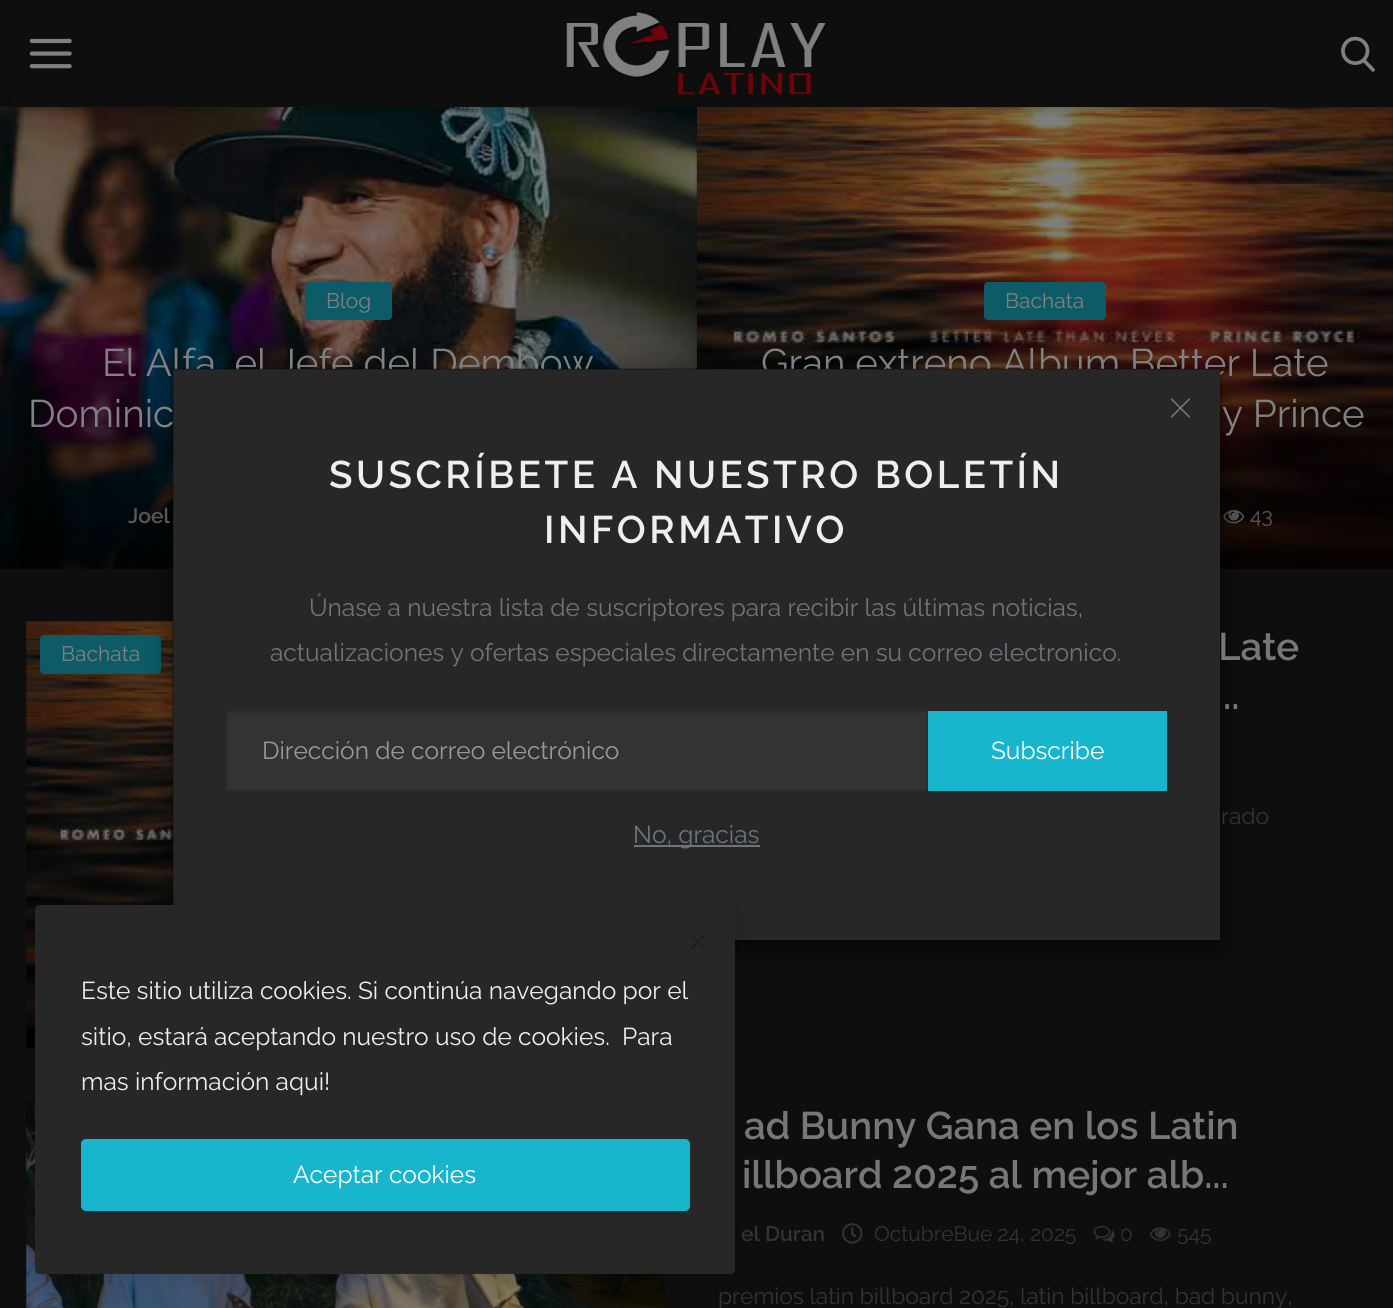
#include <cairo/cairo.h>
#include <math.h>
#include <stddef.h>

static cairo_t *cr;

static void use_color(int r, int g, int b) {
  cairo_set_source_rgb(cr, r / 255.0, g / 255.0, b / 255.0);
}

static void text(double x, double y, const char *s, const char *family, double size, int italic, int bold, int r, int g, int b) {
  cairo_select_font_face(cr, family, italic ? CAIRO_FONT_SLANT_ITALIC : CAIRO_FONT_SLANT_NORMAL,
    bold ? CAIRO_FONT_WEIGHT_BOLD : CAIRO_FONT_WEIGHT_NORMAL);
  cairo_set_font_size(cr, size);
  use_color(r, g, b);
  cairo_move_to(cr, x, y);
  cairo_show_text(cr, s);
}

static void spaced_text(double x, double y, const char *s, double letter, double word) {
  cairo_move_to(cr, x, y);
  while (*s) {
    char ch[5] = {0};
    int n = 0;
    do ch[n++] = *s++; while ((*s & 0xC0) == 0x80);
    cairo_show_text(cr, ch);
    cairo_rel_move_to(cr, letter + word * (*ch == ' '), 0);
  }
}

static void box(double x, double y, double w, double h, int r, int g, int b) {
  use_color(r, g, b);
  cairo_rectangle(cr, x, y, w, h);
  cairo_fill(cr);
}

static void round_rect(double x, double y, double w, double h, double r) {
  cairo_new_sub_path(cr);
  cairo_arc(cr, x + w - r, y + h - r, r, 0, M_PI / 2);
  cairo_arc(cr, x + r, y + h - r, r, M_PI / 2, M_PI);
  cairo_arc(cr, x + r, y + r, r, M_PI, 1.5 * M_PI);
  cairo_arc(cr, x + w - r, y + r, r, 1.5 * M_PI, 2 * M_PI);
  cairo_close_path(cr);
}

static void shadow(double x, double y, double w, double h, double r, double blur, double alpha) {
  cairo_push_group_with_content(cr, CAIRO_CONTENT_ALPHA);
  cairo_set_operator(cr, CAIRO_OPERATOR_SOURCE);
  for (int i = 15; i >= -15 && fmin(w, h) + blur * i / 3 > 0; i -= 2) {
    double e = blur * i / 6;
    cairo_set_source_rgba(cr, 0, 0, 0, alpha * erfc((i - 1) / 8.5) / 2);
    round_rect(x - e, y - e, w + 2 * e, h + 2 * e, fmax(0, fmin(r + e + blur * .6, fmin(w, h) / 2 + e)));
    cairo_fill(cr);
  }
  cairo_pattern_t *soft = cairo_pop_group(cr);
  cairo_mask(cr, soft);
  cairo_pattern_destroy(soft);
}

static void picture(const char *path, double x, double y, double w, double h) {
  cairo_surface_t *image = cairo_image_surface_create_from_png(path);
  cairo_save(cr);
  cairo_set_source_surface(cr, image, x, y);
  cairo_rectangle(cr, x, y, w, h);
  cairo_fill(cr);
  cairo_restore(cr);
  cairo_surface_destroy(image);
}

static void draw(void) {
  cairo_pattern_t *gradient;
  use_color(14, 14, 14);
  cairo_paint(cr);
  picture("img_04.png", 0, 107, 697, 462);
  picture("img_05.png", 697, 107, 696, 462);
  use_color(0, 0, 0);
  shadow(11, 19, 1372, 86, 0, 6, 0.5);
  box(9, 17, 1376, 90, 14, 14, 14);
  picture("img_01.png", 29, 38, 43, 31);
  picture("img_02.png", 566, 12, 261, 83);
  picture("img_03.png", 1341, 36, 34, 36);
  use_color(12, 91, 102);
  round_rect(305, 282, 87, 38, 4);
  cairo_fill(cr);
  gradient = cairo_pattern_create_linear(348, 338, 348, 569);
  cairo_pattern_add_color_stop_rgba(gradient, 0, 0, 0, 0, 0);
  cairo_pattern_add_color_stop_rgba(gradient, 1, 0, 0, 0, 0.77);
  cairo_set_source(cr, gradient);
  cairo_pattern_destroy(gradient);
  cairo_rectangle(cr, 0, 344, 697, 225);
  cairo_fill(cr);
  use_color(12, 91, 102);
  round_rect(984, 282, 122, 38, 4);
  cairo_fill(cr);
  gradient = cairo_pattern_create_linear(1045, 338, 1045, 569);
  cairo_pattern_add_color_stop_rgba(gradient, 0, 0, 0, 0, 0);
  cairo_pattern_add_color_stop_rgba(gradient, 1, 0, 0, 0, 0.77);
  cairo_set_source(cr, gradient);
  cairo_pattern_destroy(gradient);
  cairo_rectangle(cr, 697, 347, 696, 222);
  cairo_fill(cr);
  picture("img_06.png", 1223, 509, 22, 15);
  picture("img_08.png", 26, 621, 147, 428);
  use_color(12, 91, 102);
  round_rect(40, 635, 121, 39, 4);
  cairo_fill(cr);
  use_color(0, 0, 0);
  shadow(172, 376, 1050, 574, 0, 13, 0.5);
  picture("img_09.png", 26, 1100, 639, 208);
  picture("img_10.png", 842, 1223, 21, 21);
  picture("img_11.png", 1093, 1226, 22, 17);
  picture("img_12.png", 1149, 1227, 22, 14);
  text(326, 308, "Blog", "Raleway", 21, 0, 0, 128, 128, 128);
  text(102, 376, "El Alfa, el Jefe del Dembow", "Raleway", 38.5, 0, 0, 128, 128, 128);
  text(28, 427, "Dominic", "Raleway", 38.5, 0, 0, 128, 128, 128);
  text(128, 523, "Joel", "Raleway SemiBold", 21, 0, 0, 88, 88, 88);
  text(1005, 308, "Bachata", "Raleway", 21, 0, 0, 128, 128, 128);
  text(761, 376, "Gran extreno Album Better Late", "Raleway", 38.5, 0, 0, 128, 128, 128);
  text(1222, 427, "y Prince", "Raleway", 38.5, 0, 0, 128, 128, 128);
  text(1250, 523, "43", "Raleway", 21, 0, 0, 88, 88, 88);
  box(173, 369, 1047, 571, 39, 39, 39);
  text(61, 661, "Bachata", "Raleway", 21, 0, 0, 128, 128, 128);
  text(1218, 660, "Late", "Raleway SemiBold", 38.5, 0, 0, 119, 119, 119);
  cairo_rectangle(cr, 173, 369, 1048, 572);
  cairo_set_source_rgba(cr, 0, 0, 0, 0.2);
  cairo_stroke(cr);
  box(928, 711, 239, 80, 24, 182, 204);
  text(991, 759, "Subscribe", "Raleway", 24.5, 0, 0, 255, 255, 255);
  use_color(51, 51, 51);
  cairo_rectangle(cr, 227, 712, 700, 78);
  cairo_fill_preserve(cr);
  use_color(45, 45, 45);
  cairo_stroke(cr);
  text(262, 759, "Dirección de correo electrónico", "Raleway", 24.5, 0, 0, 153, 153, 153);
  picture("img_07.png", 1170, 398, 20, 20);
  box(634, 845, 126, 2, 108, 117, 125);
  text(633, 843, "No, gracias", "Raleway", 24.5, 0, 0, 108, 117, 125);
  text(270, 661, "actualizaciones y ofertas especiales directamente en su correo electronico.", "Raleway", 24.5, 0, 0, 108, 117, 125);
  text(309, 616, "Únase a nuestra lista de suscriptores para recibir las últimas noticias,", "Raleway", 24.5, 0, 0, 108, 117, 125);
  cairo_select_font_face(cr, "Raleway SemiBold", CAIRO_FONT_SLANT_NORMAL, CAIRO_FONT_WEIGHT_NORMAL);
  cairo_set_font_size(cr, 38.5);
  use_color(238, 238, 238);
  spaced_text(544, 543, "INFORMATIVO", 3.5, 0);
  spaced_text(329, 488, "SUSCRÍBETE A NUESTRO BOLETÍN", 3.5, 0);
  text(1223, 709, "..", "Raleway SemiBold", 38.5, 0, 0, 119, 119, 119);
  text(1221, 824, "rado", "Raleway", 22.75, 0, 0, 51, 51, 51);
  text(744, 1139, "ad Bunny Gana en los Latin", "Raleway SemiBold", 38.5, 0, 0, 119, 119, 119);
  text(742, 1188, "illboard 2025 al mejor alb...", "Raleway SemiBold", 38.5, 0, 0, 119, 119, 119);
  text(741, 1241, "el Duran", "Raleway SemiBold", 21, 0, 0, 51, 51, 51);
  text(874, 1241, "OctubreBue 24, 2025", "Raleway", 21, 0, 0, 51, 51, 51);
  text(1120, 1241, "0", "Raleway", 21, 0, 0, 51, 51, 51);
  text(1177, 1241, "545", "Raleway", 21, 0, 0, 51, 51, 51);
  text(718, 1304, "premios latin billboard 2025, latin billboard, bad bunny,", "Raleway", 22.75, 0, 0, 51, 51, 51);
  use_color(0, 0, 0);
  shadow(35, 905, 700, 369, 4, 10.5, 0.14);
  use_color(39, 39, 39);
  round_rect(36, 906, 698, 367, 3);
  cairo_fill_preserve(cr);
  cairo_stroke(cr);
  picture("img_13.png", 691, 934, 15, 15);
  text(81, 999, "Este sitio utiliza cookies. Si continúa navegando por el", "Raleway", 24.5, 0, 0, 238, 238, 238);
  text(81, 1045, "sitio, estará aceptando nuestro uso de cookies.", "Raleway", 24.5, 0, 0, 238, 238, 238);
  text(622, 1045, "Para", "Raleway", 24.5, 0, 0, 238, 238, 238);
  text(81, 1090, "mas información aqui!", "Raleway", 24.5, 0, 0, 238, 238, 238);
  use_color(24, 182, 204);
  round_rect(81, 1139, 609, 72, 5);
  cairo_fill(cr);
  text(293, 1183, "Aceptar cookies", "Raleway", 24.5, 0, 0, 255, 255, 255);
}

int main(void) {
  cairo_surface_t *surface = cairo_image_surface_create(CAIRO_FORMAT_RGB24, 1393, 1308);
  cr = cairo_create(surface);
  cairo_font_options_t *options = cairo_font_options_create();
  cairo_font_options_set_hint_metrics(options, CAIRO_HINT_METRICS_OFF);
  cairo_font_options_set_hint_style(options, CAIRO_HINT_STYLE_NONE);
  cairo_set_font_options(cr, options);
  cairo_set_miter_limit(cr, 4);
  draw();
  cairo_surface_write_to_png(surface, "out.png");
  cairo_font_options_destroy(options);
  cairo_destroy(cr);
  cairo_surface_destroy(surface);
  return 0;
}
